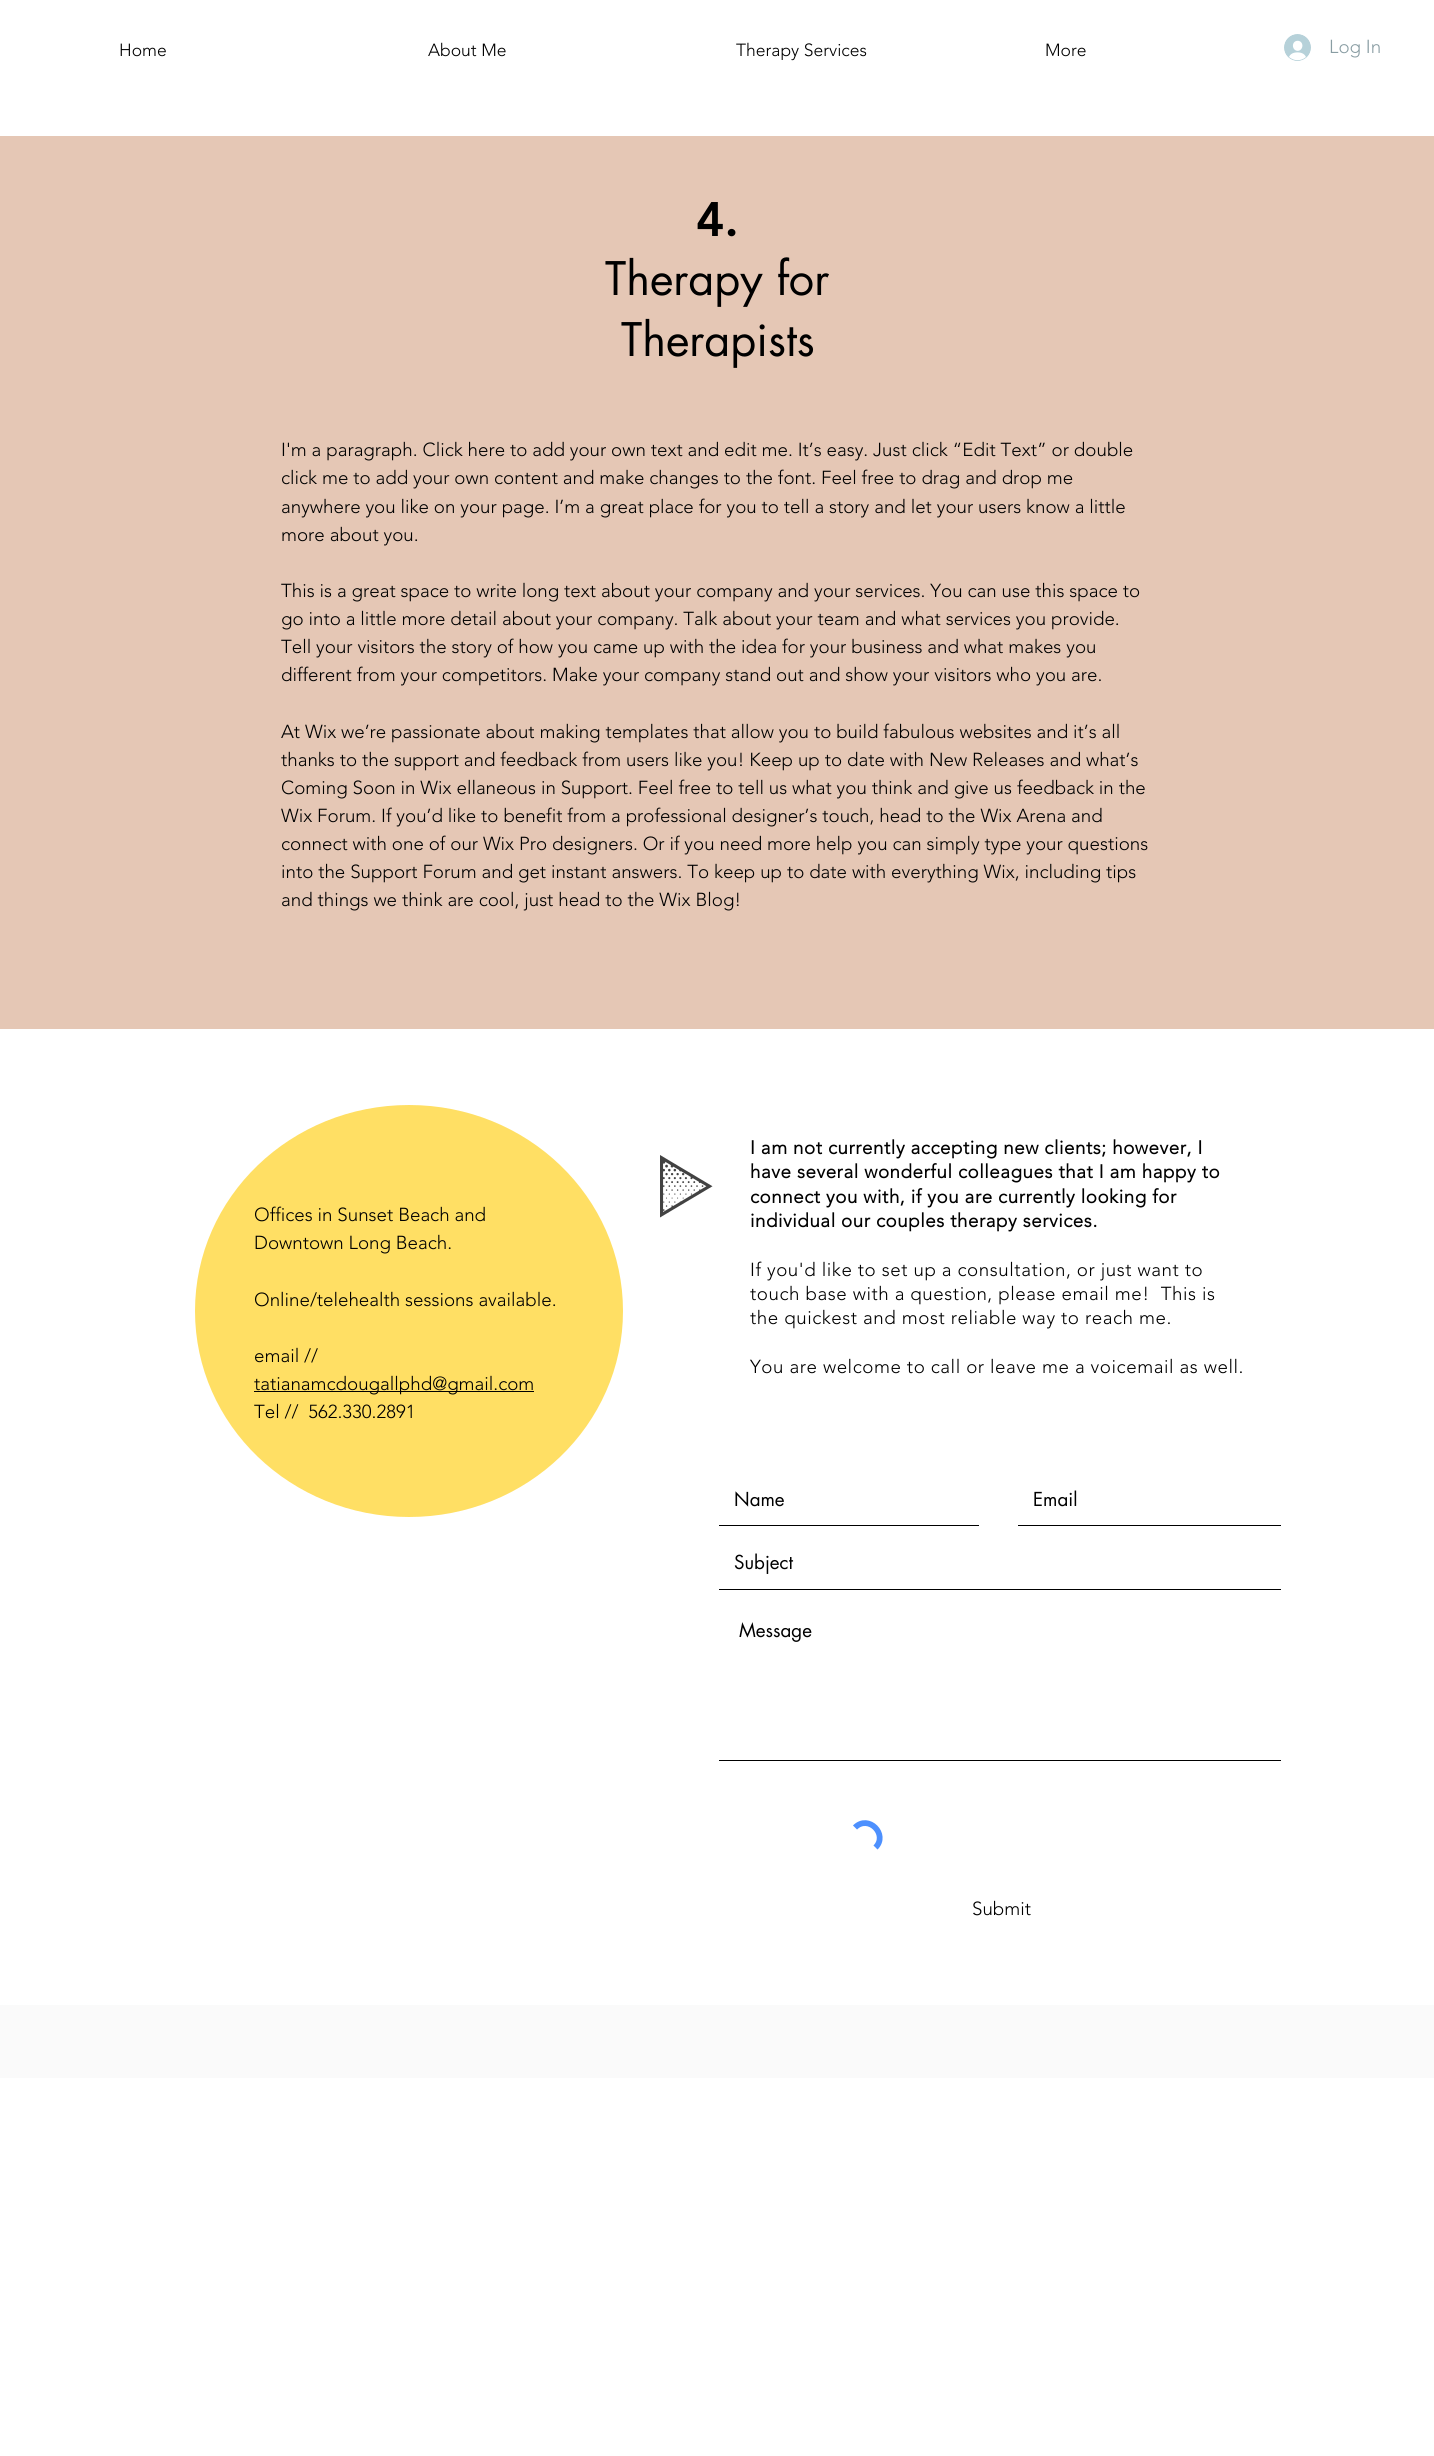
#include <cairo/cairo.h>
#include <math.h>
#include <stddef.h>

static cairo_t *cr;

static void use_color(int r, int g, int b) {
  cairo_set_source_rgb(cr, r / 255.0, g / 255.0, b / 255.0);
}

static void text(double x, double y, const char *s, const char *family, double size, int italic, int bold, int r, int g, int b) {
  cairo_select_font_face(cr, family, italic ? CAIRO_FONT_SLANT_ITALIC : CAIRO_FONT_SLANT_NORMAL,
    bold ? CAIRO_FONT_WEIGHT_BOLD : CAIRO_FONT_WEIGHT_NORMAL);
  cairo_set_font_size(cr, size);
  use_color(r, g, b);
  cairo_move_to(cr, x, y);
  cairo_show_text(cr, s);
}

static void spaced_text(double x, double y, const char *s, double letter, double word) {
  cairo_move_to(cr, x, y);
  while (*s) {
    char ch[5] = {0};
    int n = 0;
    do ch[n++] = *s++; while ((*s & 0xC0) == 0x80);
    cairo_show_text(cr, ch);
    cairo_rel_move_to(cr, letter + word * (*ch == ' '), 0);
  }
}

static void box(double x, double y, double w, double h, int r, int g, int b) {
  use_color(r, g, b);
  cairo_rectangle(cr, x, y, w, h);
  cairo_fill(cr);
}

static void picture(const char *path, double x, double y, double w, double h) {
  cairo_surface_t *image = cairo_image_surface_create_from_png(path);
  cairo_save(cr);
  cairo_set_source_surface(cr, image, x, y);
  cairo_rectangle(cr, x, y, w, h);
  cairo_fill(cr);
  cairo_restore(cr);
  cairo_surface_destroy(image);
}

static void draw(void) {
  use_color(255, 255, 255);
  cairo_paint(cr);
  picture("img_01.png", 1284, 34, 27, 27);
  box(0, 136, 1434, 893, 229, 199, 181);
  picture("img_02.png", 660, 1155, 53, 63);
  use_color(255, 223, 100);
  cairo_new_path(cr);
  cairo_move_to(cr, 409, 1105);
  cairo_curve_to(cr, 527, 1105, 623, 1197, 623, 1311);
  cairo_curve_to(cr, 623, 1425, 527, 1517, 409, 1517);
  cairo_curve_to(cr, 291, 1517, 195, 1425, 195, 1311);
  cairo_curve_to(cr, 195, 1197, 291, 1105, 409, 1105);
  cairo_close_path(cr);
  cairo_fill(cr);
  box(254, 1391, 280, 1, 0, 0, 0);
  cairo_new_path(cr);
  cairo_move_to(cr, 719, 1525);
  cairo_line_to(cr, 719, 1526);
  cairo_line_to(cr, 979, 1526);
  cairo_line_to(cr, 979, 1474);
  cairo_line_to(cr, 979, 1525);
  cairo_close_path(cr);
  cairo_fill(cr);
  box(1018, 1525, 263, 1, 0, 0, 0);
  box(719, 1589, 562, 1, 0, 0, 0);
  box(719, 1760, 562, 1, 0, 0, 0);
  cairo_new_path(cr);
  cairo_move_to(cr, 855, 1827.5);
  cairo_curve_to(cr, 868.5, 1814, 888.5, 1834.5, 875.5, 1847.5);
  use_color(77, 144, 254);
  cairo_set_line_width(cr, 5.8);
  cairo_stroke(cr);
  box(0, 2005, 1434, 73, 250, 250, 250);
  text(119, 56, "Home", "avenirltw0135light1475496 Light", 17.5, 0, 0, 0, 0, 0);
  text(428, 56, "About Me", "avenirltw0135light1475496 Light", 17.5, 0, 0, 0, 0, 0);
  text(736, 56, "Therapy Services", "avenirltw0135light1475496 Light", 17.5, 0, 0, 0, 0, 0);
  text(1045, 56, "More", "avenirltw0135light1475496 Light", 17.5, 0, 0, 0, 0, 0);
  text(1329, 53, "Log In", "avenirltw0135light1475496 Light", 18.75, 0, 0, 137, 157, 163);
  text(696, 236, "4.", "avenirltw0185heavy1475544 Black", 48, 0, 0, 0, 0, 0);
  text(605, 295, "Therapy for", "futura", 45, 0, 0, 0, 0, 0);
  text(621, 356, "Therapists", "futura", 45, 0, 0, 0, 0, 0);
  text(281, 456, "I'm a paragraph. Click here to add your own text and edit me. It’s easy. Just click “Edit Text” or double", "avenirltw0135light1475496 Light", 18.75, 0, 0, 0, 0, 0);
  text(281, 484, "click me to add your own content and make changes to the font. Feel free to drag and drop me", "avenirltw0135light1475496 Light", 18.75, 0, 0, 0, 0, 0);
  text(281, 513, "anywhere you like on your page. I’m a great place for you to tell a story and let your users know a little", "avenirltw0135light1475496 Light", 18.75, 0, 0, 0, 0, 0);
  text(281, 541, "more about you.", "avenirltw0135light1475496 Light", 18.75, 0, 0, 0, 0, 0);
  text(281, 597, "This is a great space to write long text about your company and your services. You can use this space to", "avenirltw0135light1475496 Light", 18.75, 0, 0, 0, 0, 0);
  text(281, 625, "go into a little more detail about your company. Talk about your team and what services you provide.", "avenirltw0135light1475496 Light", 18.75, 0, 0, 0, 0, 0);
  text(281, 653, "Tell your visitors the story of how you came up with the idea for your business and what makes you", "avenirltw0135light1475496 Light", 18.75, 0, 0, 0, 0, 0);
  text(281, 681, "different from your competitors. Make your company stand out and show your visitors who you are.", "avenirltw0135light1475496 Light", 18.75, 0, 0, 0, 0, 0);
  text(281, 738, "At Wix we’re passionate about making templates that allow you to build fabulous websites and it’s all", "avenirltw0135light1475496 Light", 18.75, 0, 0, 0, 0, 0);
  text(281, 766, "thanks to the support and feedback from users like you! Keep up to date with New Releases and what’s", "avenirltw0135light1475496 Light", 18.75, 0, 0, 0, 0, 0);
  text(281, 794, "Coming Soon in Wix ellaneous in Support. Feel free to tell us what you think and give us feedback in the", "avenirltw0135light1475496 Light", 18.75, 0, 0, 0, 0, 0);
  text(281, 822, "Wix Forum. If you’d like to benefit from a professional designer’s touch, head to the Wix Arena and", "avenirltw0135light1475496 Light", 18.75, 0, 0, 0, 0, 0);
  text(281, 850, "connect with one of our Wix Pro designers. Or if you need more help you can simply type your questions", "avenirltw0135light1475496 Light", 18.75, 0, 0, 0, 0, 0);
  text(281, 878, "into the Support Forum and get instant answers. To keep up to date with everything Wix, including tips", "avenirltw0135light1475496 Light", 18.75, 0, 0, 0, 0, 0);
  text(281, 906, "and things we think are cool, just head to the Wix Blog!", "avenirltw0135light1475496 Light", 18.75, 0, 0, 0, 0, 0);
  cairo_select_font_face(cr, "avenirltw0135light1475496", CAIRO_FONT_SLANT_NORMAL, CAIRO_FONT_WEIGHT_BOLD);
  spaced_text(750, 1154, "I am not currently accepting new clients; however, I", 0.55, 0);
  spaced_text(750, 1178, "have several wonderful colleagues that I am happy to", 0.55, 0);
  spaced_text(750, 1203, "connect you with, if you are currently looking for", 0.55, 0);
  spaced_text(750, 1227, "individual our couples therapy services.", 0.55, 0);
  cairo_select_font_face(cr, "avenirltw0135light1475496 Light", CAIRO_FONT_SLANT_NORMAL, CAIRO_FONT_WEIGHT_NORMAL);
  spaced_text(750, 1276, "If you'd like to set up a consultation, or just want to", 0.55, 0);
  spaced_text(750, 1300, "touch base with a question, please email me!  This is", 0.55, 0);
  spaced_text(750, 1324, "the quickest and most reliable way to reach me.", 0.55, 0);
  spaced_text(750, 1373, "You are welcome to call or leave me a voicemail as well.", 0.55, 0);
  text(254, 1221, "Offices in Sunset Beach and", "avenirltw0135light1475496 Light", 18.75, 0, 0, 0, 0, 0);
  text(254, 1249, "Downtown Long Beach.", "avenirltw0135light1475496 Light", 18.75, 0, 0, 0, 0, 0);
  text(254, 1306, "Online/telehealth sessions available.", "avenirltw0135light1475496 Light", 18.75, 0, 0, 0, 0, 0);
  text(254, 1362, "email //", "avenirltw0135light1475496 Light", 18.75, 0, 0, 0, 0, 0);
  text(254, 1390, "tatianamcdougallphd@gmail.com", "avenirltw0135light1475496 Light", 18.75, 0, 0, 0, 0, 0);
  text(254, 1418, "Tel //  562.330.2891", "avenirltw0135light1475496 Light", 18.75, 0, 0, 0, 0, 0);
  text(734, 1506, "Name", "futura", 18.75, 0, 0, 0, 0, 0);
  text(1033, 1506, "Email", "futura", 18.75, 0, 0, 0, 0, 0);
  text(734, 1569, "Subject", "futura", 18.75, 0, 0, 0, 0, 0);
  text(739, 1637, "Message", "futura", 18.75, 0, 0, 0, 0, 0);
  text(972, 1915, "Submit", "avenirltw0135light1475496 Light", 18.75, 0, 0, 0, 0, 0);
}

int main(void) {
  cairo_surface_t *surface = cairo_image_surface_create(CAIRO_FORMAT_RGB24, 1434, 2456);
  cr = cairo_create(surface);
  cairo_font_options_t *options = cairo_font_options_create();
  cairo_font_options_set_hint_metrics(options, CAIRO_HINT_METRICS_OFF);
  cairo_font_options_set_hint_style(options, CAIRO_HINT_STYLE_NONE);
  cairo_set_font_options(cr, options);
  cairo_set_miter_limit(cr, 4);
  draw();
  cairo_surface_write_to_png(surface, "out.png");
  cairo_font_options_destroy(options);
  cairo_destroy(cr);
  cairo_surface_destroy(surface);
  return 0;
}
